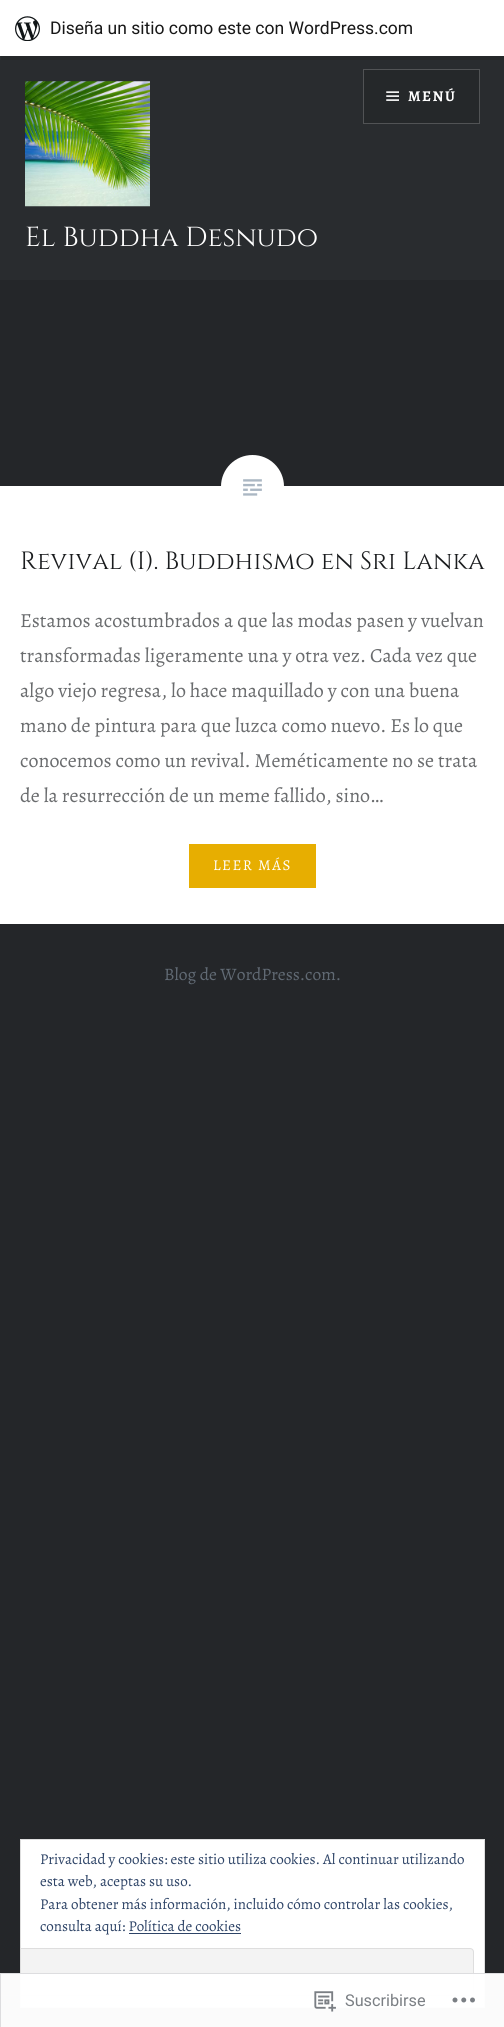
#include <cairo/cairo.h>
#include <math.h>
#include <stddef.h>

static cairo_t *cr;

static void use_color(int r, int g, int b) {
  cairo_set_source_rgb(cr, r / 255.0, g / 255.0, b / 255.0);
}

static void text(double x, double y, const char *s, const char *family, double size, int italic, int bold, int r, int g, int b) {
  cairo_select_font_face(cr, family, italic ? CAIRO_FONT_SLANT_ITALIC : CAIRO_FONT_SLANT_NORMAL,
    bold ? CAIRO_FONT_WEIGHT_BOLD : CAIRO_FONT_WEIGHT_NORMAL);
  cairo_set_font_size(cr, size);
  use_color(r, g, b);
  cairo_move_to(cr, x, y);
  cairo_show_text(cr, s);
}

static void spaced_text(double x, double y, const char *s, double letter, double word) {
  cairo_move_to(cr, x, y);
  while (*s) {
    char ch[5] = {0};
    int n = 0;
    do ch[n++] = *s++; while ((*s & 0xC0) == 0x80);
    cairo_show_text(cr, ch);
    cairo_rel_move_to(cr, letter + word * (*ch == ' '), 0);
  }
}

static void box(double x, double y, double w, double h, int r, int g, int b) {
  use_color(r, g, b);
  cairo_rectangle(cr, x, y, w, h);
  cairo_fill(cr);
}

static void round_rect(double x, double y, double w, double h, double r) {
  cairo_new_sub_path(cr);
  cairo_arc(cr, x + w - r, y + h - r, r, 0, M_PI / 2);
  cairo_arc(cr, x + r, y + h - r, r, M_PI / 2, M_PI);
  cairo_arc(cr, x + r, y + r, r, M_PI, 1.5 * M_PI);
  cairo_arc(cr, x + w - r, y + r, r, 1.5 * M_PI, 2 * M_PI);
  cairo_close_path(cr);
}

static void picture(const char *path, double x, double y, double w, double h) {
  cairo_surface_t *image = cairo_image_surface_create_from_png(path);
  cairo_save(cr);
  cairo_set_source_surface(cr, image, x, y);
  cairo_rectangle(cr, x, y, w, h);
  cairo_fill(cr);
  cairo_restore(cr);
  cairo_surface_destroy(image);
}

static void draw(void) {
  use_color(36, 38, 41);
  cairo_paint(cr);
  box(0, 56, 504, 224, 41, 44, 47);
  use_color(37, 40, 42);
  cairo_new_path(cr);
  cairo_move_to(cr, 1, 56);
  cairo_line_to(cr, 1, 60);
  cairo_line_to(cr, 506, 60);
  cairo_line_to(cr, 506, 4);
  cairo_line_to(cr, 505, 4);
  cairo_line_to(cr, 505, 56);
  cairo_close_path(cr);
  cairo_fill(cr);
  box(0, 0, 504, 56, 255, 255, 255);
  picture("img_01.png", 15, 16, 25, 25);
  box(0, 486, 504, 438, 255, 255, 255);
  use_color(37, 40, 42);
  cairo_rectangle(cr, 363.5, 69.5, 116, 54);
  cairo_fill_preserve(cr);
  use_color(81, 83, 85);
  cairo_set_line_width(cr, 1);
  cairo_stroke(cr);
  picture("img_02.png", 386, 91, 13, 10);
  picture("img_03.png", 25, 81, 125, 126);
  use_color(255, 255, 255);
  cairo_arc(cr, 252.5, 486.5, 31.5, 0, 2 * M_PI);
  cairo_fill(cr);
  picture("img_04.png", 243, 479, 19, 17);
  box(189, 844, 127, 44, 231, 174, 1);
  use_color(255, 255, 255);
  cairo_rectangle(cr, 20.5, 1839.5, 464, 168);
  cairo_fill_preserve(cr);
  use_color(222, 222, 222);
  cairo_stroke(cr);
  box(129, 1933, 112, 1, 46, 68, 103);
  use_color(243, 243, 243);
  cairo_new_path(cr);
  cairo_move_to(cr, 21, 1948);
  cairo_line_to(cr, 470, 1948);
  cairo_curve_to(cr, 472, 1948, 474, 1950, 474, 1952);
  cairo_line_to(cr, 474, 1992);
  cairo_curve_to(cr, 474, 1994, 472, 1996, 470, 1996);
  cairo_line_to(cr, 21, 1996);
  cairo_close_path(cr);
  cairo_fill(cr);
  cairo_save(cr);
  cairo_rectangle(cr, 21, 1840, 463, 166);
  cairo_clip(cr);
  round_rect(11.5, 1948.5, 462, 47, 3.5);
  use_color(222, 222, 222);
  cairo_stroke(cr);
  cairo_restore(cr);
  cairo_set_source_rgba(cr, 1, 1, 1, 0.98);
  cairo_rectangle(cr, 0, 1973, 504, 54);
  cairo_fill(cr);
  cairo_rectangle(cr, 0.5, 1973.5, 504, 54);
  cairo_set_source_rgba(cr, 0.863, 0.863, 0.871, 0.98);
  cairo_stroke(cr);
  picture("img_05.png", 314, 1991, 22, 21);
  picture("img_06.png", 452, 1997, 23, 6);
  text(50, 34, "Diseña un sitio como este con WordPress.com", "Roboto", 17.5, 0, 0, 23, 23, 23);
  cairo_select_font_face(cr, "Alegreya", CAIRO_FONT_SLANT_NORMAL, CAIRO_FONT_WEIGHT_BOLD);
  cairo_set_font_size(cr, 15);
  use_color(255, 255, 255);
  spaced_text(408, 101, "MENÚ", 1.5, 0);
  text(25, 246, "El Buddha Desnudo", "Cinzel", 27.5, 0, 0, 255, 255, 255);
  text(20, 569, "Revival (I). Buddhismo en Sri Lanka", "Cinzel", 25, 0, 0, 26, 28, 30);
  text(20, 627, "Estamos acostumbrados a que las modas pasen y vuelvan", "Alegreya", 20, 0, 0, 106, 108, 110);
  text(20, 662, "transformadas ligeramente una y otra vez. Cada vez que", "Alegreya", 20, 0, 0, 106, 108, 110);
  text(20, 697, "algo viejo regresa, lo hace maquillado y con una buena", "Alegreya", 20, 0, 0, 106, 108, 110);
  text(20, 732, "mano de pintura para que luzca como nuevo. Es lo que", "Alegreya", 20, 0, 0, 106, 108, 110);
  text(20, 767, "conocemos como un revival. Meméticamente no se trata", "Alegreya", 20, 0, 0, 106, 108, 110);
  text(20, 802, "de la resurrección de un meme fallido, sino…", "Alegreya", 20, 0, 0, 106, 108, 110);
  cairo_set_font_size(cr, 15);
  use_color(255, 255, 255);
  spaced_text(213, 870, "LEER MÁS", 1.5, 0);
  text(164, 980, "Blog de WordPress.com.", "Alegreya", 17.5, 0, 0, 97, 106, 116);
  text(40, 1864, "Privacidad y cookies: este sitio utiliza cookies. Al continuar utilizando", "Alegreya", 15, 0, 0, 46, 68, 103);
  text(40, 1886, "esta web, aceptas su uso.", "Alegreya", 15, 0, 0, 46, 68, 103);
  text(40, 1909, "Para obtener más información, incluido cómo controlar las cookies,", "Alegreya", 15, 0, 0, 46, 68, 103);
  text(40, 1931, "consulta aquí: Política de cookies", "Alegreya", 15, 0, 0, 46, 68, 103);
  text(345, 2006, "Suscribirse", "Roboto", 16.25, 0, 0, 123, 127, 132);
}

int main(void) {
  cairo_surface_t *surface = cairo_image_surface_create(CAIRO_FORMAT_RGB24, 504, 2027);
  cr = cairo_create(surface);
  cairo_font_options_t *options = cairo_font_options_create();
  cairo_font_options_set_hint_metrics(options, CAIRO_HINT_METRICS_OFF);
  cairo_font_options_set_hint_style(options, CAIRO_HINT_STYLE_NONE);
  cairo_set_font_options(cr, options);
  cairo_set_miter_limit(cr, 4);
  draw();
  cairo_surface_write_to_png(surface, "out.png");
  cairo_font_options_destroy(options);
  cairo_destroy(cr);
  cairo_surface_destroy(surface);
  return 0;
}
